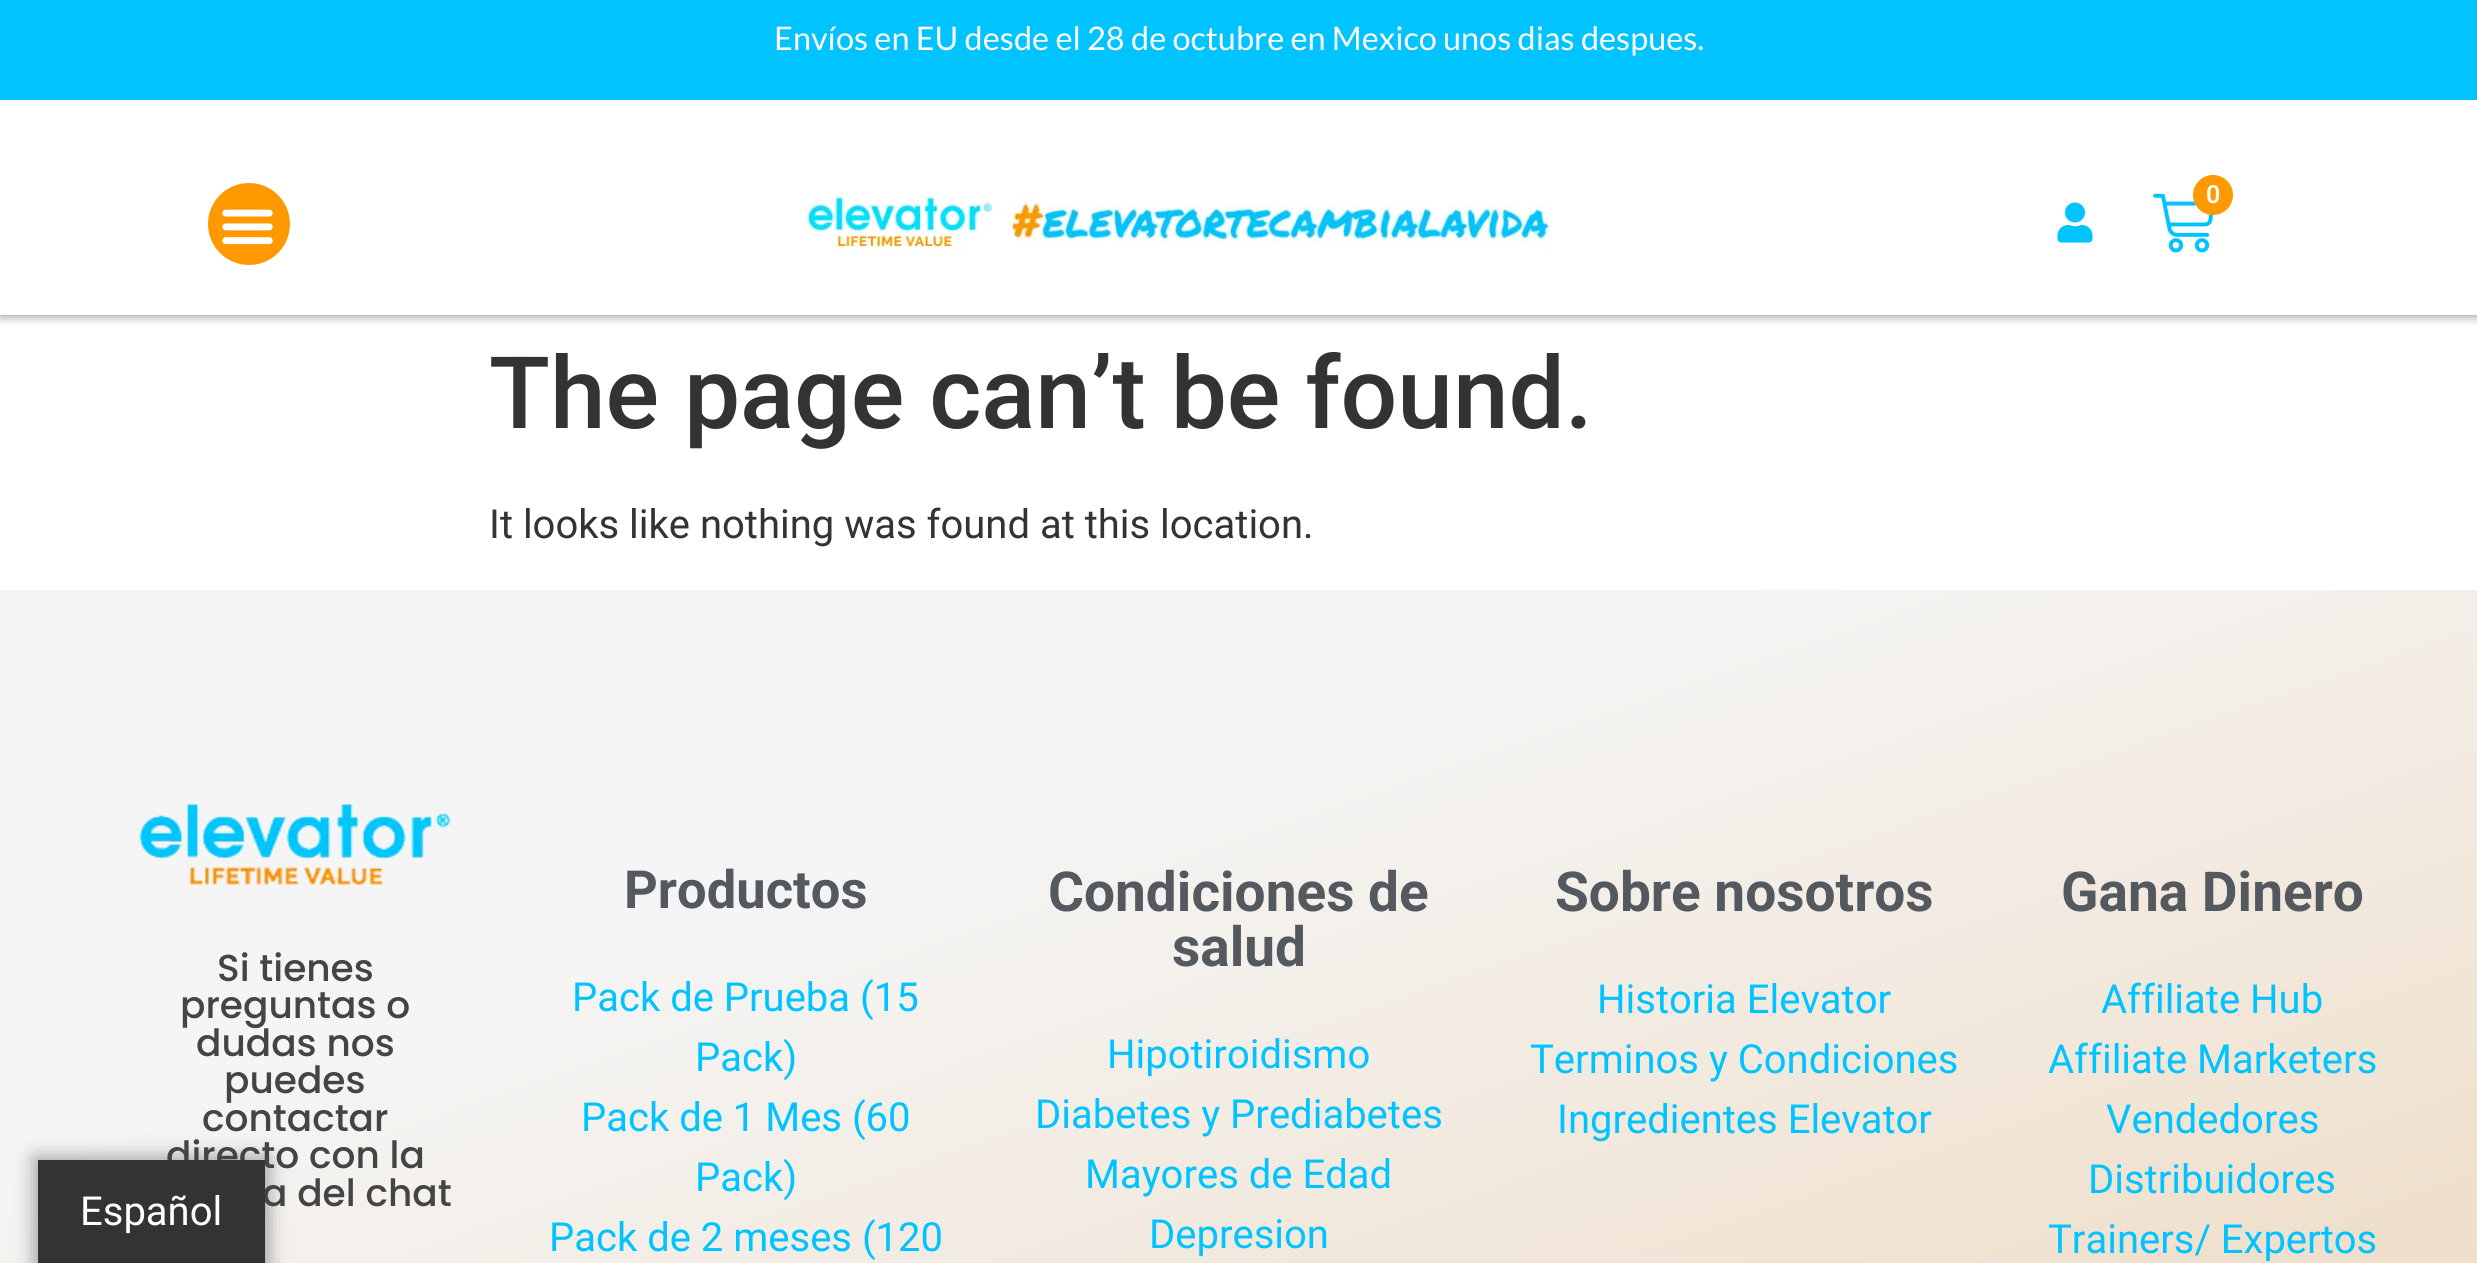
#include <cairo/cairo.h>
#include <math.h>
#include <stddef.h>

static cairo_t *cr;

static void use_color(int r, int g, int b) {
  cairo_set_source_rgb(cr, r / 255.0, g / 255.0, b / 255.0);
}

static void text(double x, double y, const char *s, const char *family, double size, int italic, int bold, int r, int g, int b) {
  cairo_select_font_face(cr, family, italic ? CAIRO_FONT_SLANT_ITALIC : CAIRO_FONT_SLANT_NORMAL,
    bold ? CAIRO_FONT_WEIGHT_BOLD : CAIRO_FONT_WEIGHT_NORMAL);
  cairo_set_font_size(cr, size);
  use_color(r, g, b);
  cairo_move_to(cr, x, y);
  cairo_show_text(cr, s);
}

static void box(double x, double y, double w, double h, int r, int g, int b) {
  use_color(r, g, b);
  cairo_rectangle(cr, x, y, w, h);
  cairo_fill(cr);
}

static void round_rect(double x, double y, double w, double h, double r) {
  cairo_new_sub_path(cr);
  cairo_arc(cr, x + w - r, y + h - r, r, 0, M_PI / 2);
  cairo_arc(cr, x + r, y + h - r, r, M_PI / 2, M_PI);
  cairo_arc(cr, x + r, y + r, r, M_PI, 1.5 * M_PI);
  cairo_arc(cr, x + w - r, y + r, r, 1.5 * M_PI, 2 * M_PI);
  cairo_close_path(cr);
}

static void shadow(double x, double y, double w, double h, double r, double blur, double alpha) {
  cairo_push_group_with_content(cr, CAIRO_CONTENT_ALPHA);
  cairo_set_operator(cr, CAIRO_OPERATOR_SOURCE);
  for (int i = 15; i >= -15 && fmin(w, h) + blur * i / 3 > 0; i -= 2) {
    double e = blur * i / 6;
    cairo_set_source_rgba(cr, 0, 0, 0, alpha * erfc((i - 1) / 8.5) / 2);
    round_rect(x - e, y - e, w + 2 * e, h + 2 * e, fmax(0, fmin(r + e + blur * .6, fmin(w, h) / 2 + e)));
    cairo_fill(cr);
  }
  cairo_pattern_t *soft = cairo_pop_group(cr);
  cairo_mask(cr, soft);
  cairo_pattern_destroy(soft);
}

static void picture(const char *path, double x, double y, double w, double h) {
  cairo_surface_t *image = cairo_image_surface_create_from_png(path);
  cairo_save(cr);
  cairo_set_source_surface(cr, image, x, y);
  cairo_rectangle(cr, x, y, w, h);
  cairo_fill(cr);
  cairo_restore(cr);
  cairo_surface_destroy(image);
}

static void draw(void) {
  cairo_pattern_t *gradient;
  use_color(255, 255, 255);
  cairo_paint(cr);
  cairo_save(cr);
  cairo_rectangle(cr, 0, 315, 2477, 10);
  cairo_clip(cr);
  use_color(0, 0, 0);
  shadow(0, 0, 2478, 315, 0, 6, 0.5);
  cairo_restore(cr);
  box(0, 0, 2477, 100, 0, 195, 255);
  use_color(254, 153, 0);
  cairo_arc(cr, 249, 224, 41, 0, 2 * M_PI);
  cairo_fill(cr);
  picture("img_01.png", 222, 209, 51, 36);
  picture("img_02.png", 805, 196, 747, 56);
  picture("img_03.png", 2153, 193, 60, 60);
  use_color(255, 153, 0);
  cairo_arc(cr, 2213, 195, 20, 0, 2 * M_PI);
  cairo_fill(cr);
  picture("img_04.png", 2057, 202, 36, 41);
  gradient = cairo_pattern_create_linear(936, 268, 1541, 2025);
  cairo_pattern_add_color_stop_rgba(gradient, 0.29, 0.961, 0.961, 0.961, 1);
  cairo_pattern_add_color_stop_rgba(gradient, 1, 0.925, 0.831, 0.714, 1);
  cairo_set_source(cr, gradient);
  cairo_pattern_destroy(gradient);
  cairo_rectangle(cr, 0, 590, 2477, 673);
  cairo_fill(cr);
  use_color(153, 153, 153);
  shadow(35, 1158, 233, 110, 0, 10, 1);
  picture("img_05.png", 139, 803, 312, 83);
  text(774, 50, "Envíos en EU desde el 28 de octubre en Mexico unos dias despues.", "Lato", 32.5, 0, 0, 255, 255, 255);
  text(2206, 203, "0", "Roboto SemiBold", 25, 0, 0, 255, 255, 255);
  text(489, 428, "The page can’t be found.", "Roboto Medium", 100, 0, 0, 51, 51, 51);
  text(489, 538, "It looks like nothing was found at this location.", "Roboto", 40, 0, 0, 51, 51, 51);
  text(217, 981, "Si tienes", "Poppins Medium", 37.5, 0, 0, 68, 68, 68);
  text(180, 1018, "preguntas o", "Poppins Medium", 37.5, 0, 0, 68, 68, 68);
  text(196, 1056, "dudas nos", "Poppins Medium", 37.5, 0, 0, 68, 68, 68);
  text(224, 1093, "puedes", "Poppins Medium", 37.5, 0, 0, 68, 68, 68);
  text(202, 1131, "contactar", "Poppins Medium", 37.5, 0, 0, 68, 68, 68);
  text(166, 1168, "directo con la", "Poppins Medium", 37.5, 0, 0, 68, 68, 68);
  text(262, 1206, "a del chat", "Poppins Medium", 37.5, 0, 0, 68, 68, 68);
  box(38, 1160, 227, 103, 51, 51, 51);
  text(80, 1225, "Español", "Roboto", 40, 0, 0, 255, 255, 255);
  text(624, 908, "Productos", "Roboto", 52.5, 0, 1, 84, 89, 95);
  text(572, 1011, "Pack de Prueba (15", "Roboto", 40, 0, 0, 0, 195, 255);
  text(695, 1071, "Pack)", "Roboto", 40, 0, 0, 0, 195, 255);
  text(581, 1131, "Pack de 1 Mes (60", "Roboto", 40, 0, 0, 0, 195, 255);
  text(695, 1191, "Pack)", "Roboto", 40, 0, 0, 0, 195, 255);
  text(549, 1251, "Pack de 2 meses (120", "Roboto", 40, 0, 0, 0, 195, 255);
  text(1048, 911, "Condiciones de", "Roboto", 55, 0, 1, 84, 89, 95);
  text(1172, 966, "salud", "Roboto", 55, 0, 1, 84, 89, 95);
  text(1107, 1068, "Hipotiroidismo", "Roboto", 40, 0, 0, 0, 195, 255);
  text(1035, 1128, "Diabetes y Prediabetes", "Roboto", 40, 0, 0, 0, 195, 255);
  text(1085, 1188, "Mayores de Edad", "Roboto", 40, 0, 0, 0, 195, 255);
  text(1149, 1248, "Depresion", "Roboto", 40, 0, 0, 0, 195, 255);
  text(1555, 911, "Sobre nosotros", "Roboto", 55, 0, 1, 84, 89, 95);
  text(1597, 1013, "Historia Elevator", "Roboto", 40, 0, 0, 0, 195, 255);
  text(1530, 1073, "Terminos y Condiciones", "Roboto", 40, 0, 0, 0, 195, 255);
  text(1557, 1133, "Ingredientes Elevator", "Roboto", 40, 0, 0, 0, 195, 255);
  text(2061, 911, "Gana Dinero", "Roboto", 55, 0, 1, 84, 89, 95);
  text(2101, 1013, "Affiliate Hub", "Roboto", 40, 0, 0, 0, 195, 255);
  text(2048, 1073, "Affiliate Marketers", "Roboto", 40, 0, 0, 0, 195, 255);
  text(2106, 1133, "Vendedores", "Roboto", 40, 0, 0, 0, 195, 255);
  text(2088, 1193, "Distribuidores", "Roboto", 40, 0, 0, 0, 195, 255);
  text(2048, 1253, "Trainers/ Expertos", "Roboto", 40, 0, 0, 0, 195, 255);
}

int main(void) {
  cairo_surface_t *surface = cairo_image_surface_create(CAIRO_FORMAT_RGB24, 2477, 1263);
  cr = cairo_create(surface);
  cairo_font_options_t *options = cairo_font_options_create();
  cairo_font_options_set_hint_metrics(options, CAIRO_HINT_METRICS_OFF);
  cairo_font_options_set_hint_style(options, CAIRO_HINT_STYLE_NONE);
  cairo_set_font_options(cr, options);
  cairo_set_miter_limit(cr, 4);
  draw();
  cairo_surface_write_to_png(surface, "out.png");
  cairo_font_options_destroy(options);
  cairo_destroy(cr);
  cairo_surface_destroy(surface);
  return 0;
}
